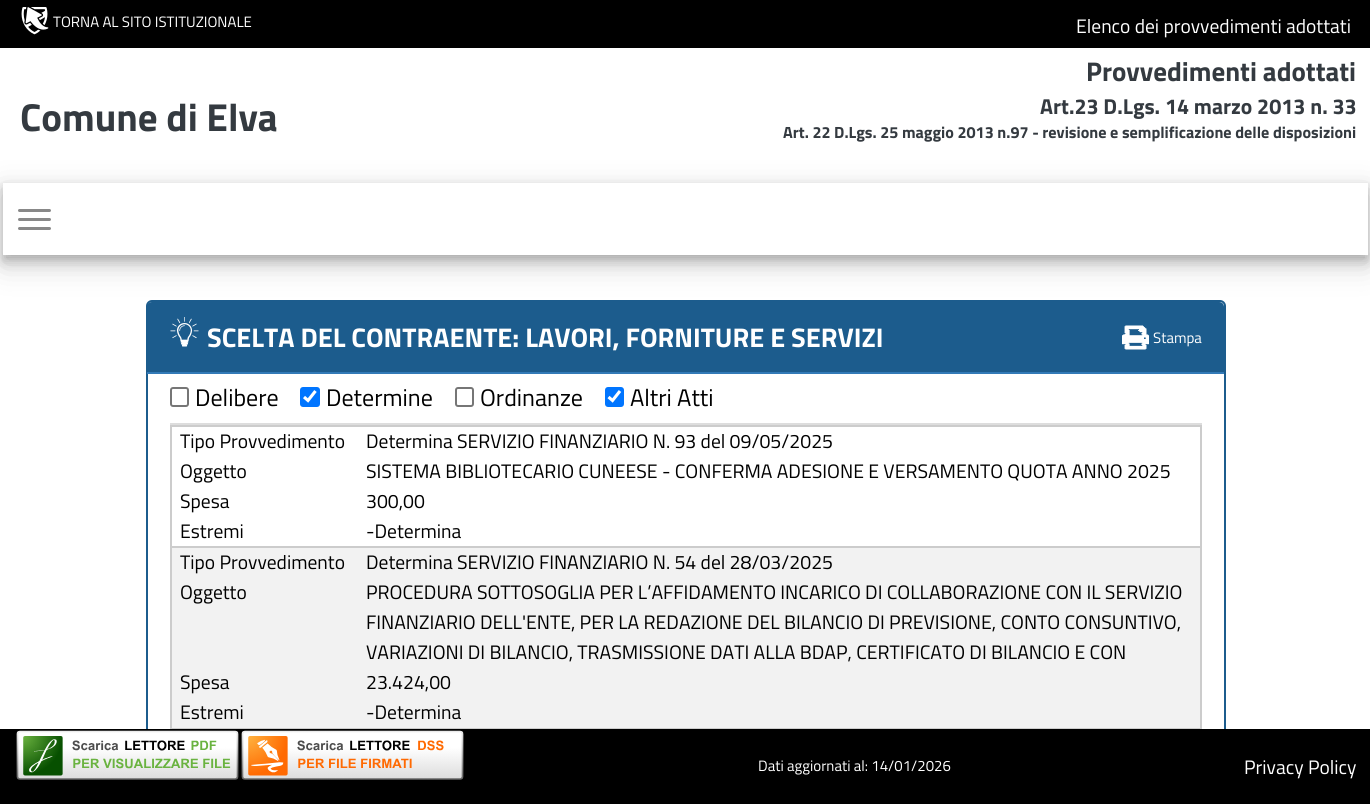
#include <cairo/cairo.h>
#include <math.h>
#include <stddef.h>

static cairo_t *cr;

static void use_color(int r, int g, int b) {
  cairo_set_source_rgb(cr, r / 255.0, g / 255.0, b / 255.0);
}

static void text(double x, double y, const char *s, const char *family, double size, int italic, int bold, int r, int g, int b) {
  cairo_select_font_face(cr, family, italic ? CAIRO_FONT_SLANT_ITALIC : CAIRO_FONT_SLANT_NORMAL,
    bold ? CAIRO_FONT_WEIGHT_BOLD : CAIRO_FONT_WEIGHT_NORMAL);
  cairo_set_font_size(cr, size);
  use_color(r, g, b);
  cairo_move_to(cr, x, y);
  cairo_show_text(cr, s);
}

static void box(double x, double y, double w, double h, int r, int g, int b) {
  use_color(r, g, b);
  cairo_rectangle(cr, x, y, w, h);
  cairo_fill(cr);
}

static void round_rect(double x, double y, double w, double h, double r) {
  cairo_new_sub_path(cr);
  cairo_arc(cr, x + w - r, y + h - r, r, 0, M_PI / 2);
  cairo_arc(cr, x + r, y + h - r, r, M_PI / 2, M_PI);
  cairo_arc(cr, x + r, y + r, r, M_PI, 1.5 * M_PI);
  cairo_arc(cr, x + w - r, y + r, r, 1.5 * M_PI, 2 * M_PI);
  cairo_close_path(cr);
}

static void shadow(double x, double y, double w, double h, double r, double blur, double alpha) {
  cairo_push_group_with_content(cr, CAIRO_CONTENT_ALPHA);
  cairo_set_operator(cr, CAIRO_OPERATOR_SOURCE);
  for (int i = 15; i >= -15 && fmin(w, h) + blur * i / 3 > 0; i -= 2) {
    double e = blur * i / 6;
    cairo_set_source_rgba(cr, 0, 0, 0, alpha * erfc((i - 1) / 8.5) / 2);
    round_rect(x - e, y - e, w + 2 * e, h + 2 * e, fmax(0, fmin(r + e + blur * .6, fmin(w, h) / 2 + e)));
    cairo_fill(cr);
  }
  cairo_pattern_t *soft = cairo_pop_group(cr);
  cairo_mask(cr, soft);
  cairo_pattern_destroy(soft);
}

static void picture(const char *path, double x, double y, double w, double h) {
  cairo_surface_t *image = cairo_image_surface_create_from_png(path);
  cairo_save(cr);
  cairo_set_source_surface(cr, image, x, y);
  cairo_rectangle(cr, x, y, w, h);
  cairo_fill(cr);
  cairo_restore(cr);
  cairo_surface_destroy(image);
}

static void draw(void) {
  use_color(255, 255, 255);
  cairo_paint(cr);
  box(0, 0, 1370, 48, 0, 0, 0);
  picture("img_01.png", 21, 7, 28, 28);
  use_color(0, 0, 0);
  shadow(2, 183, 1368, 75, 6, 1, 0.05);
  use_color(255, 255, 255);
  round_rect(2, 182, 1368, 75, 6);
  cairo_fill(cr);
  round_rect(147, 301, 1078, 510, 5);
  use_color(28, 92, 141);
  cairo_stroke(cr);
  cairo_new_path(cr);
  cairo_move_to(cr, 152, 302);
  cairo_line_to(cr, 1219, 302);
  cairo_curve_to(cr, 1222, 302, 1224, 304, 1224, 307);
  cairo_line_to(cr, 1224, 374);
  cairo_line_to(cr, 147, 374);
  cairo_line_to(cr, 147, 307);
  cairo_curve_to(cr, 147, 304, 149, 302, 152, 302);
  cairo_close_path(cr);
  cairo_fill(cr);
  cairo_save(cr);
  cairo_set_fill_rule(cr, CAIRO_FILL_RULE_EVEN_ODD);
  cairo_new_path(cr);
  cairo_move_to(cr, 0, 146);
  cairo_line_to(cr, 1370, 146);
  cairo_line_to(cr, 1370, 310);
  cairo_line_to(cr, 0, 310);
  cairo_close_path(cr);
  cairo_move_to(cr, 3, 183);
  cairo_line_to(cr, 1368, 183);
  cairo_line_to(cr, 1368, 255);
  cairo_line_to(cr, 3, 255);
  cairo_close_path(cr);
  cairo_clip(cr);
  use_color(0, 0, 0);
  shadow(3, 192, 1365, 72, 0, 15, 0.19);
  cairo_restore(cr);
  cairo_save(cr);
  cairo_set_fill_rule(cr, CAIRO_FILL_RULE_EVEN_ODD);
  cairo_new_path(cr);
  cairo_move_to(cr, 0, 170);
  cairo_line_to(cr, 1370, 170);
  cairo_line_to(cr, 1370, 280);
  cairo_line_to(cr, 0, 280);
  cairo_close_path(cr);
  cairo_move_to(cr, 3, 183);
  cairo_line_to(cr, 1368, 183);
  cairo_line_to(cr, 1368, 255);
  cairo_line_to(cr, 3, 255);
  cairo_close_path(cr);
  cairo_clip(cr);
  use_color(0, 0, 0);
  shadow(3, 189, 1365, 72, 0, 6, 0.2);
  cairo_restore(cr);
  use_color(136, 136, 136);
  round_rect(18, 209, 33, 3, 1.5);
  cairo_fill(cr);
  round_rect(18, 218, 33, 3, 1.5);
  cairo_fill(cr);
  round_rect(18, 227, 33, 3, 1.5);
  cairo_fill(cr);
  box(147, 372, 1077, 2, 51, 122, 183);
  picture("img_02.png", 170, 317, 29, 30);
  picture("img_03.png", 1122, 325, 27, 25);
  round_rect(171, 388, 17, 18, 2);
  use_color(118, 118, 118);
  cairo_stroke(cr);
  use_color(0, 117, 255);
  round_rect(300, 387, 20, 20, 3);
  cairo_fill(cr);
  cairo_new_path(cr);
  cairo_move_to(cr, 304, 397);
  cairo_line_to(cr, 308, 400.5);
  cairo_line_to(cr, 315.5, 391);
  use_color(255, 255, 255);
  cairo_set_line_width(cr, 3.1);
  cairo_stroke(cr);
  round_rect(456, 388, 17, 18, 2);
  use_color(118, 118, 118);
  cairo_set_line_width(cr, 2);
  cairo_stroke(cr);
  use_color(0, 117, 255);
  round_rect(605, 387, 19, 20, 3);
  cairo_fill(cr);
  cairo_new_path(cr);
  cairo_move_to(cr, 608.5, 397);
  cairo_line_to(cr, 612.5, 400.5);
  cairo_line_to(cr, 620, 391);
  use_color(255, 255, 255);
  cairo_set_line_width(cr, 3.1);
  cairo_stroke(cr);
  box(170, 423, 1032, 2, 221, 221, 221);
  box(170, 425, 1032, 2, 204, 204, 204);
  box(170, 546, 1032, 2, 204, 204, 204);
  box(170, 728, 1032, 1, 204, 204, 204);
  box(1200, 546, 2, 183, 204, 204, 204);
  box(1200, 425, 2, 123, 204, 204, 204);
  box(170, 546, 2, 183, 204, 204, 204);
  box(170, 425, 2, 123, 204, 204, 204);
  box(172, 548, 1028, 180, 242, 242, 242);
  box(0, 729, 1370, 75, 0, 0, 0);
  picture("img_04.png", 16, 730, 223, 50);
  picture("img_05.png", 241, 730, 223, 50);
  text(53, 27, "TORNA AL SITO ISTITUZIONALE", "Titillium Web", 15, 0, 0, 255, 255, 255);
  text(1076, 33, "Elenco dei provvedimenti adottati", "Titillium Web", 19.5, 0, 0, 255, 255, 255);
  text(20, 131, "Comune di Elva", "Titillium Web", 39, 0, 1, 52, 58, 64);
  text(1086, 81, "Provvedimenti adottati", "Titillium Web", 27, 0, 1, 52, 58, 64);
  text(1040, 114, "Art.23 D.Lgs. 14 marzo 2013 n. 33", "Titillium Web", 21.6, 0, 1, 52, 58, 64);
  text(783, 138, "Art. 22 D.Lgs. 25 maggio 2013 n.97 - revisione e semplificazione delle disposizioni", "Titillium Web", 16.2, 0, 1, 52, 58, 64);
  text(207, 347, "SCELTA DEL CONTRAENTE: LAVORI, FORNITURE E SERVIZI", "Titillium Web", 27, 0, 1, 255, 255, 255);
  text(1153, 343, "Stampa", "Titillium Web", 15, 0, 0, 255, 255, 255);
  text(195, 406, "Delibere", "Titillium Web", 24, 0, 0, 0, 0, 0);
  text(326, 406, "Determine", "Titillium Web", 24, 0, 0, 0, 0, 0);
  text(480, 406, "Ordinanze", "Titillium Web", 24, 0, 0, 0, 0, 0);
  text(630, 406, "Altri Atti", "Titillium Web", 24, 0, 0, 0, 0, 0);
  text(180, 448, "Tipo Provvedimento", "Titillium Web", 19.5, 0, 0, 0, 0, 0);
  text(366, 448, "Determina SERVIZIO FINANZIARIO N. 93 del 09/05/2025", "Titillium Web", 19.5, 0, 0, 0, 0, 0);
  text(180, 478, "Oggetto", "Titillium Web", 19.5, 0, 0, 0, 0, 0);
  text(366, 478, "SISTEMA BIBLIOTECARIO CUNEESE - CONFERMA ADESIONE E VERSAMENTO QUOTA ANNO 2025", "Titillium Web", 19.5, 0, 0, 0, 0, 0);
  text(180, 508, "Spesa", "Titillium Web", 19.5, 0, 0, 0, 0, 0);
  text(366, 508, "300,00", "Titillium Web", 19.5, 0, 0, 0, 0, 0);
  text(180, 538, "Estremi", "Titillium Web", 19.5, 0, 0, 0, 0, 0);
  text(366, 538, "-Determina", "Titillium Web", 19.5, 0, 0, 0, 0, 0);
  text(180, 569, "Tipo Provvedimento", "Titillium Web", 19.5, 0, 0, 0, 0, 0);
  text(366, 569, "Determina SERVIZIO FINANZIARIO N. 54 del 28/03/2025", "Titillium Web", 19.5, 0, 0, 0, 0, 0);
  text(180, 599, "Oggetto", "Titillium Web", 19.5, 0, 0, 0, 0, 0);
  text(366, 599, "PROCEDURA SOTTOSOGLIA PER L’AFFIDAMENTO INCARICO DI COLLABORAZIONE CON IL SERVIZIO", "Titillium Web", 19.5, 0, 0, 0, 0, 0);
  text(366, 629, "FINANZIARIO DELL'ENTE, PER LA REDAZIONE DEL BILANCIO DI PREVISIONE, CONTO CONSUNTIVO,", "Titillium Web", 19.5, 0, 0, 0, 0, 0);
  text(366, 659, "VARIAZIONI DI BILANCIO, TRASMISSIONE DATI ALLA BDAP, CERTIFICATO DI BILANCIO E CON", "Titillium Web", 19.5, 0, 0, 0, 0, 0);
  text(180, 689, "Spesa", "Titillium Web", 19.5, 0, 0, 0, 0, 0);
  text(366, 689, "23.424,00", "Titillium Web", 19.5, 0, 0, 0, 0, 0);
  text(180, 719, "Estremi", "Titillium Web", 19.5, 0, 0, 0, 0, 0);
  text(366, 719, "-Determina", "Titillium Web", 19.5, 0, 0, 0, 0, 0);
  text(758, 771, "Dati aggiornati al: 14/01/2026", "Titillium Web", 15, 0, 0, 255, 255, 255);
  text(1244, 774, "Privacy Policy", "Titillium Web", 19.5, 0, 0, 255, 255, 255);
}

int main(void) {
  cairo_surface_t *surface = cairo_image_surface_create(CAIRO_FORMAT_RGB24, 1370, 804);
  cr = cairo_create(surface);
  cairo_font_options_t *options = cairo_font_options_create();
  cairo_font_options_set_hint_metrics(options, CAIRO_HINT_METRICS_OFF);
  cairo_font_options_set_hint_style(options, CAIRO_HINT_STYLE_NONE);
  cairo_set_font_options(cr, options);
  cairo_set_miter_limit(cr, 4);
  draw();
  cairo_surface_write_to_png(surface, "out.png");
  cairo_font_options_destroy(options);
  cairo_destroy(cr);
  cairo_surface_destroy(surface);
  return 0;
}
